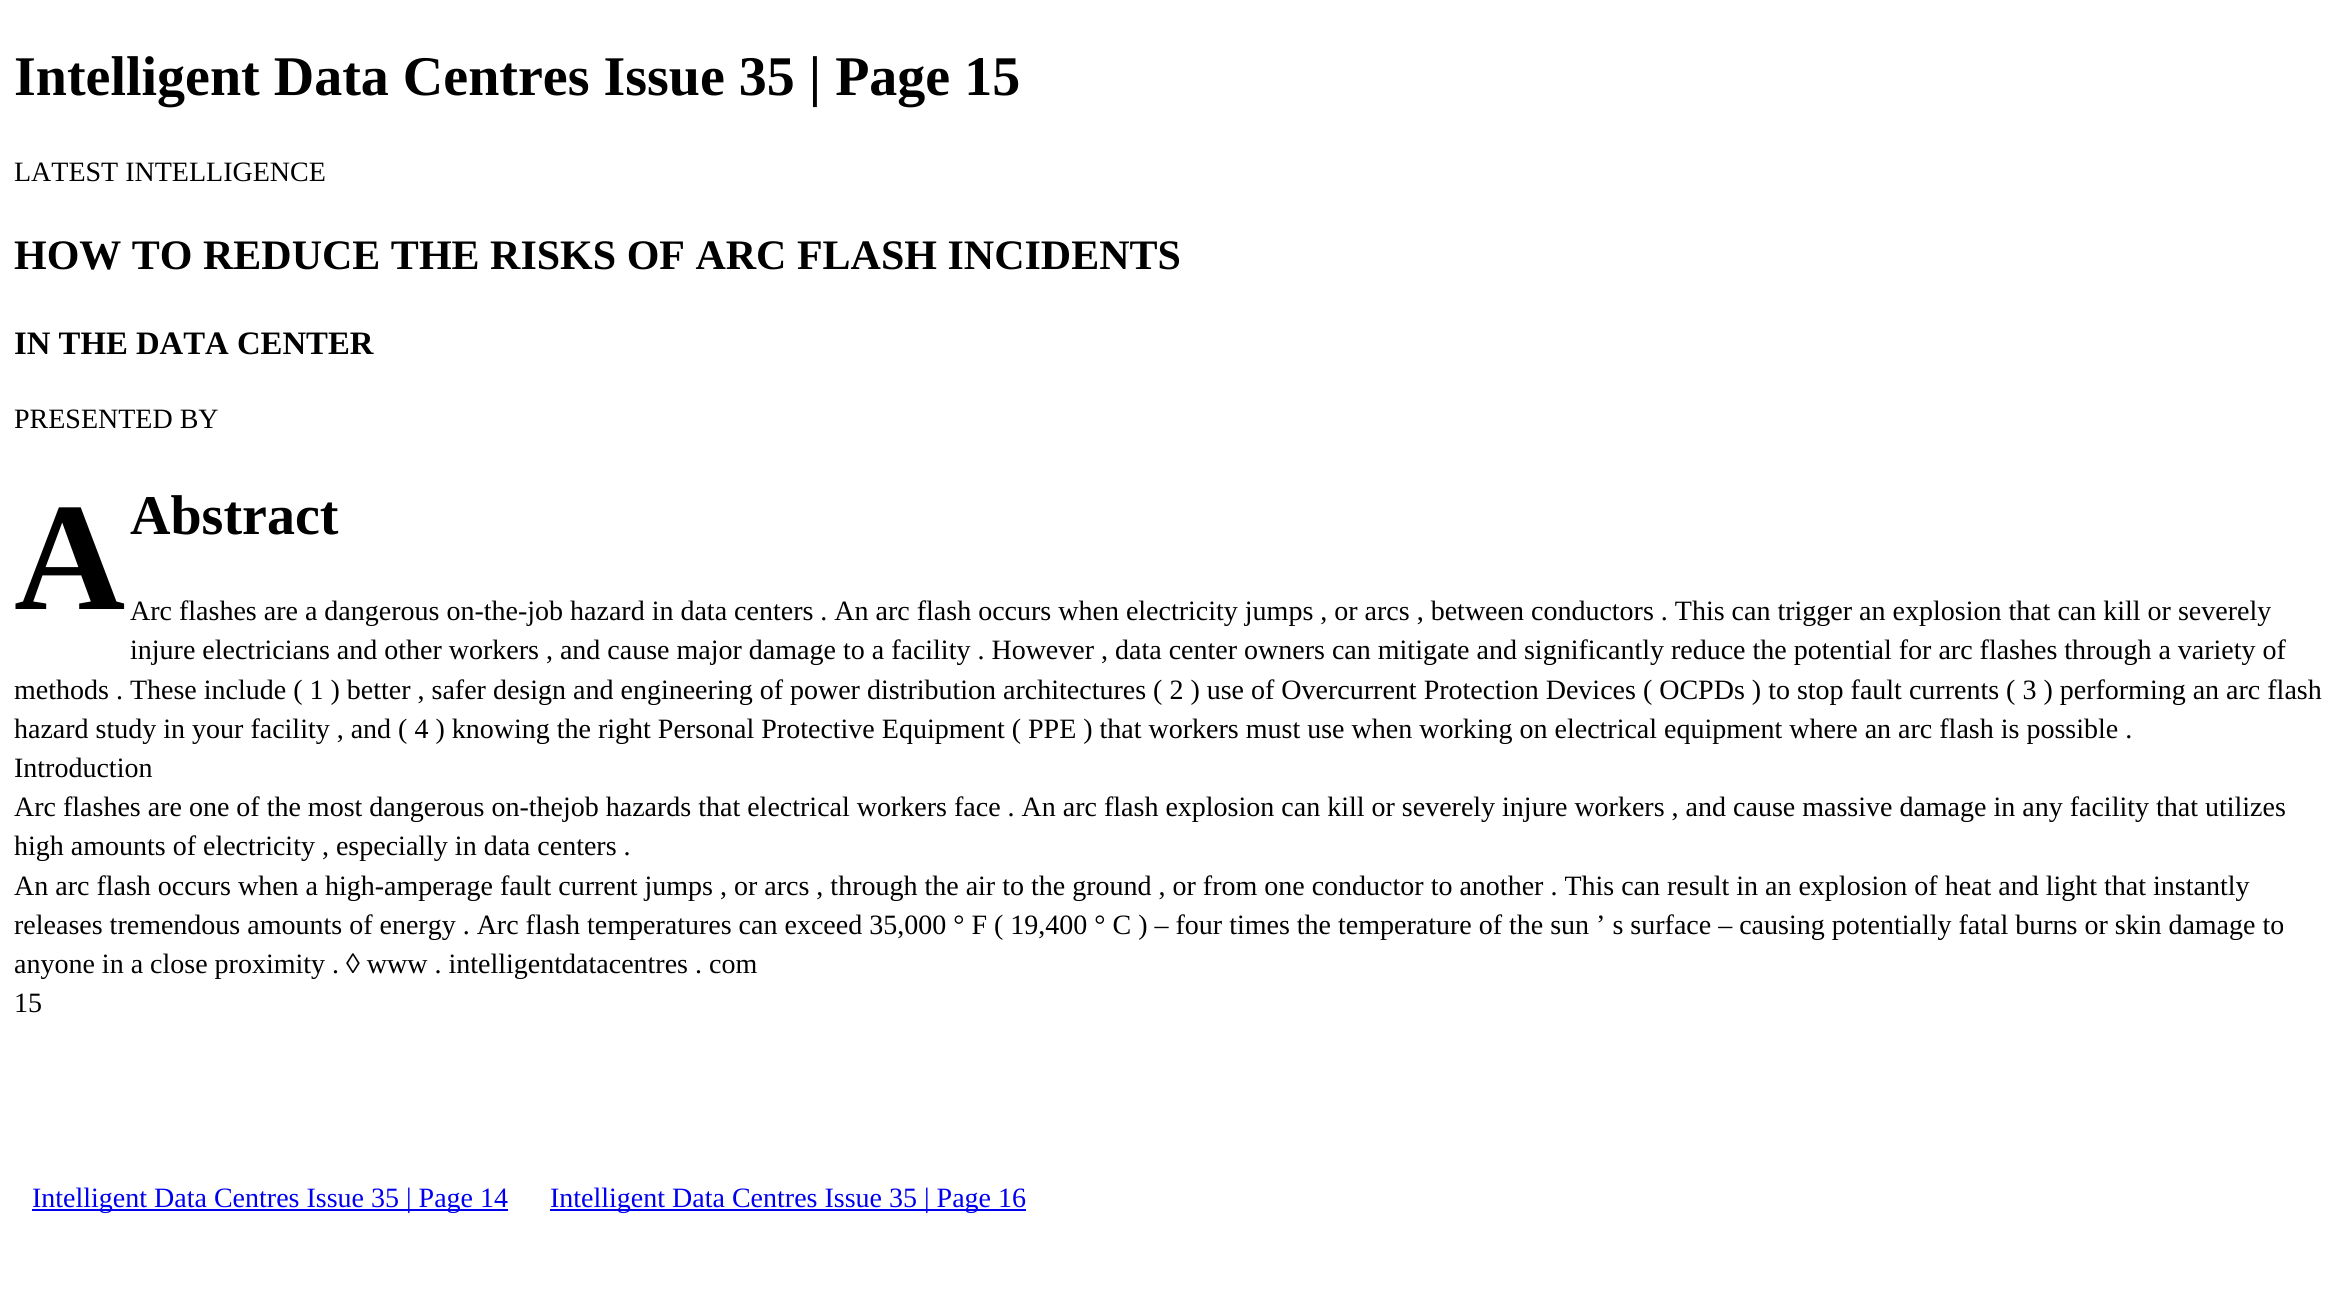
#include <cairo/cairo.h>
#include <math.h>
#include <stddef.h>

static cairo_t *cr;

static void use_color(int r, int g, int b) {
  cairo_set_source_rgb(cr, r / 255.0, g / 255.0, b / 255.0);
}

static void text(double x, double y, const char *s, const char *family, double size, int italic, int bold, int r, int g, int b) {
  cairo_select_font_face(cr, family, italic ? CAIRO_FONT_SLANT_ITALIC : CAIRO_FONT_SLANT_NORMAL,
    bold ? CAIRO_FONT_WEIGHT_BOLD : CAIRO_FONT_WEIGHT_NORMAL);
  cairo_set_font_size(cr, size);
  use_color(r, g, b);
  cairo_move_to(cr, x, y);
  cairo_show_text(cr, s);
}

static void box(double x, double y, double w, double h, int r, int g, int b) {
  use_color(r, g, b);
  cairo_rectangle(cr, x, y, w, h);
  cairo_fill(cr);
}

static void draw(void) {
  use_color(255, 255, 255);
  cairo_paint(cr);
  box(32, 1209, 476, 2, 0, 0, 238);
  box(550, 1209, 476, 2, 0, 0, 238);
  text(14, 95, "Intelligent Data Centres Issue 35 | Page 15", "Liberation Serif", 56, 0, 1, 0, 0, 0);
  text(14, 181, "LATEST INTELLIGENCE", "Liberation Serif", 28, 0, 0, 0, 0, 0);
  text(14, 269, "HOW TO REDUCE THE RISKS OF ARC FLASH INCIDENTS", "Liberation Serif", 42, 0, 1, 0, 0, 0);
  text(14, 354, "IN THE DATA CENTER", "Liberation Serif", 32.75, 0, 1, 0, 0, 0);
  text(14, 428, "PRESENTED BY", "Liberation Serif", 28, 0, 0, 0, 0, 0);
  text(14, 609, "A", "Liberation Serif", 154, 0, 1, 0, 0, 0);
  text(130, 534, "Abstract", "Liberation Serif", 56, 0, 1, 0, 0, 0);
  text(130, 620, "Arc flashes are a dangerous on-the-job hazard in data centers . An arc flash occurs when electricity jumps , or arcs , between conductors . This can trigger an explosion that can kill or severely", "Liberation Serif", 28, 0, 0, 0, 0, 0);
  text(130, 659, "injure electricians and other workers , and cause major damage to a facility . However , data center owners can mitigate and significantly reduce the potential for arc flashes through a variety of", "Liberation Serif", 28, 0, 0, 0, 0, 0);
  text(14, 699, "methods . These include ( 1 ) better , safer design and engineering of power distribution architectures ( 2 ) use of Overcurrent Protection Devices ( OCPDs ) to stop fault currents ( 3 ) performing an arc flash", "Liberation Serif", 28, 0, 0, 0, 0, 0);
  text(14, 738, "hazard study in your facility , and ( 4 ) knowing the right Personal Protective Equipment ( PPE ) that workers must use when working on electrical equipment where an arc flash is possible .", "Liberation Serif", 28, 0, 0, 0, 0, 0);
  text(14, 777, "Introduction", "Liberation Serif", 28, 0, 0, 0, 0, 0);
  text(14, 816, "Arc flashes are one of the most dangerous on-thejob hazards that electrical workers face . An arc flash explosion can kill or severely injure workers , and cause massive damage in any facility that utilizes", "Liberation Serif", 28, 0, 0, 0, 0, 0);
  text(14, 855, "high amounts of electricity , especially in data centers .", "Liberation Serif", 28, 0, 0, 0, 0, 0);
  text(14, 895, "An arc flash occurs when a high-amperage fault current jumps , or arcs , through the air to the ground , or from one conductor to another . This can result in an explosion of heat and light that instantly", "Liberation Serif", 28, 0, 0, 0, 0, 0);
  text(14, 934, "releases tremendous amounts of energy . Arc flash temperatures can exceed 35,000 ° F ( 19,400 ° C ) – four times the temperature of the sun ’ s surface – causing potentially fatal burns or skin damage to", "Liberation Serif", 28, 0, 0, 0, 0, 0);
  text(14, 973, "anyone in a close proximity . ◊ www . intelligentdatacentres . com", "Liberation Serif", 28, 0, 0, 0, 0, 0);
  text(14, 1012, "15", "Liberation Serif", 28, 0, 0, 0, 0, 0);
  text(32, 1207, "Intelligent Data Centres Issue 35 | Page 14", "Liberation Serif", 28, 0, 0, 0, 0, 238);
  text(550, 1207, "Intelligent Data Centres Issue 35 | Page 16", "Liberation Serif", 28, 0, 0, 0, 0, 238);
}

int main(void) {
  cairo_surface_t *surface = cairo_image_surface_create(CAIRO_FORMAT_RGB24, 2347, 1295);
  cr = cairo_create(surface);
  cairo_font_options_t *options = cairo_font_options_create();
  cairo_font_options_set_hint_metrics(options, CAIRO_HINT_METRICS_OFF);
  cairo_font_options_set_hint_style(options, CAIRO_HINT_STYLE_NONE);
  cairo_set_font_options(cr, options);
  cairo_set_miter_limit(cr, 4);
  draw();
  cairo_surface_write_to_png(surface, "out.png");
  cairo_font_options_destroy(options);
  cairo_destroy(cr);
  cairo_surface_destroy(surface);
  return 0;
}
